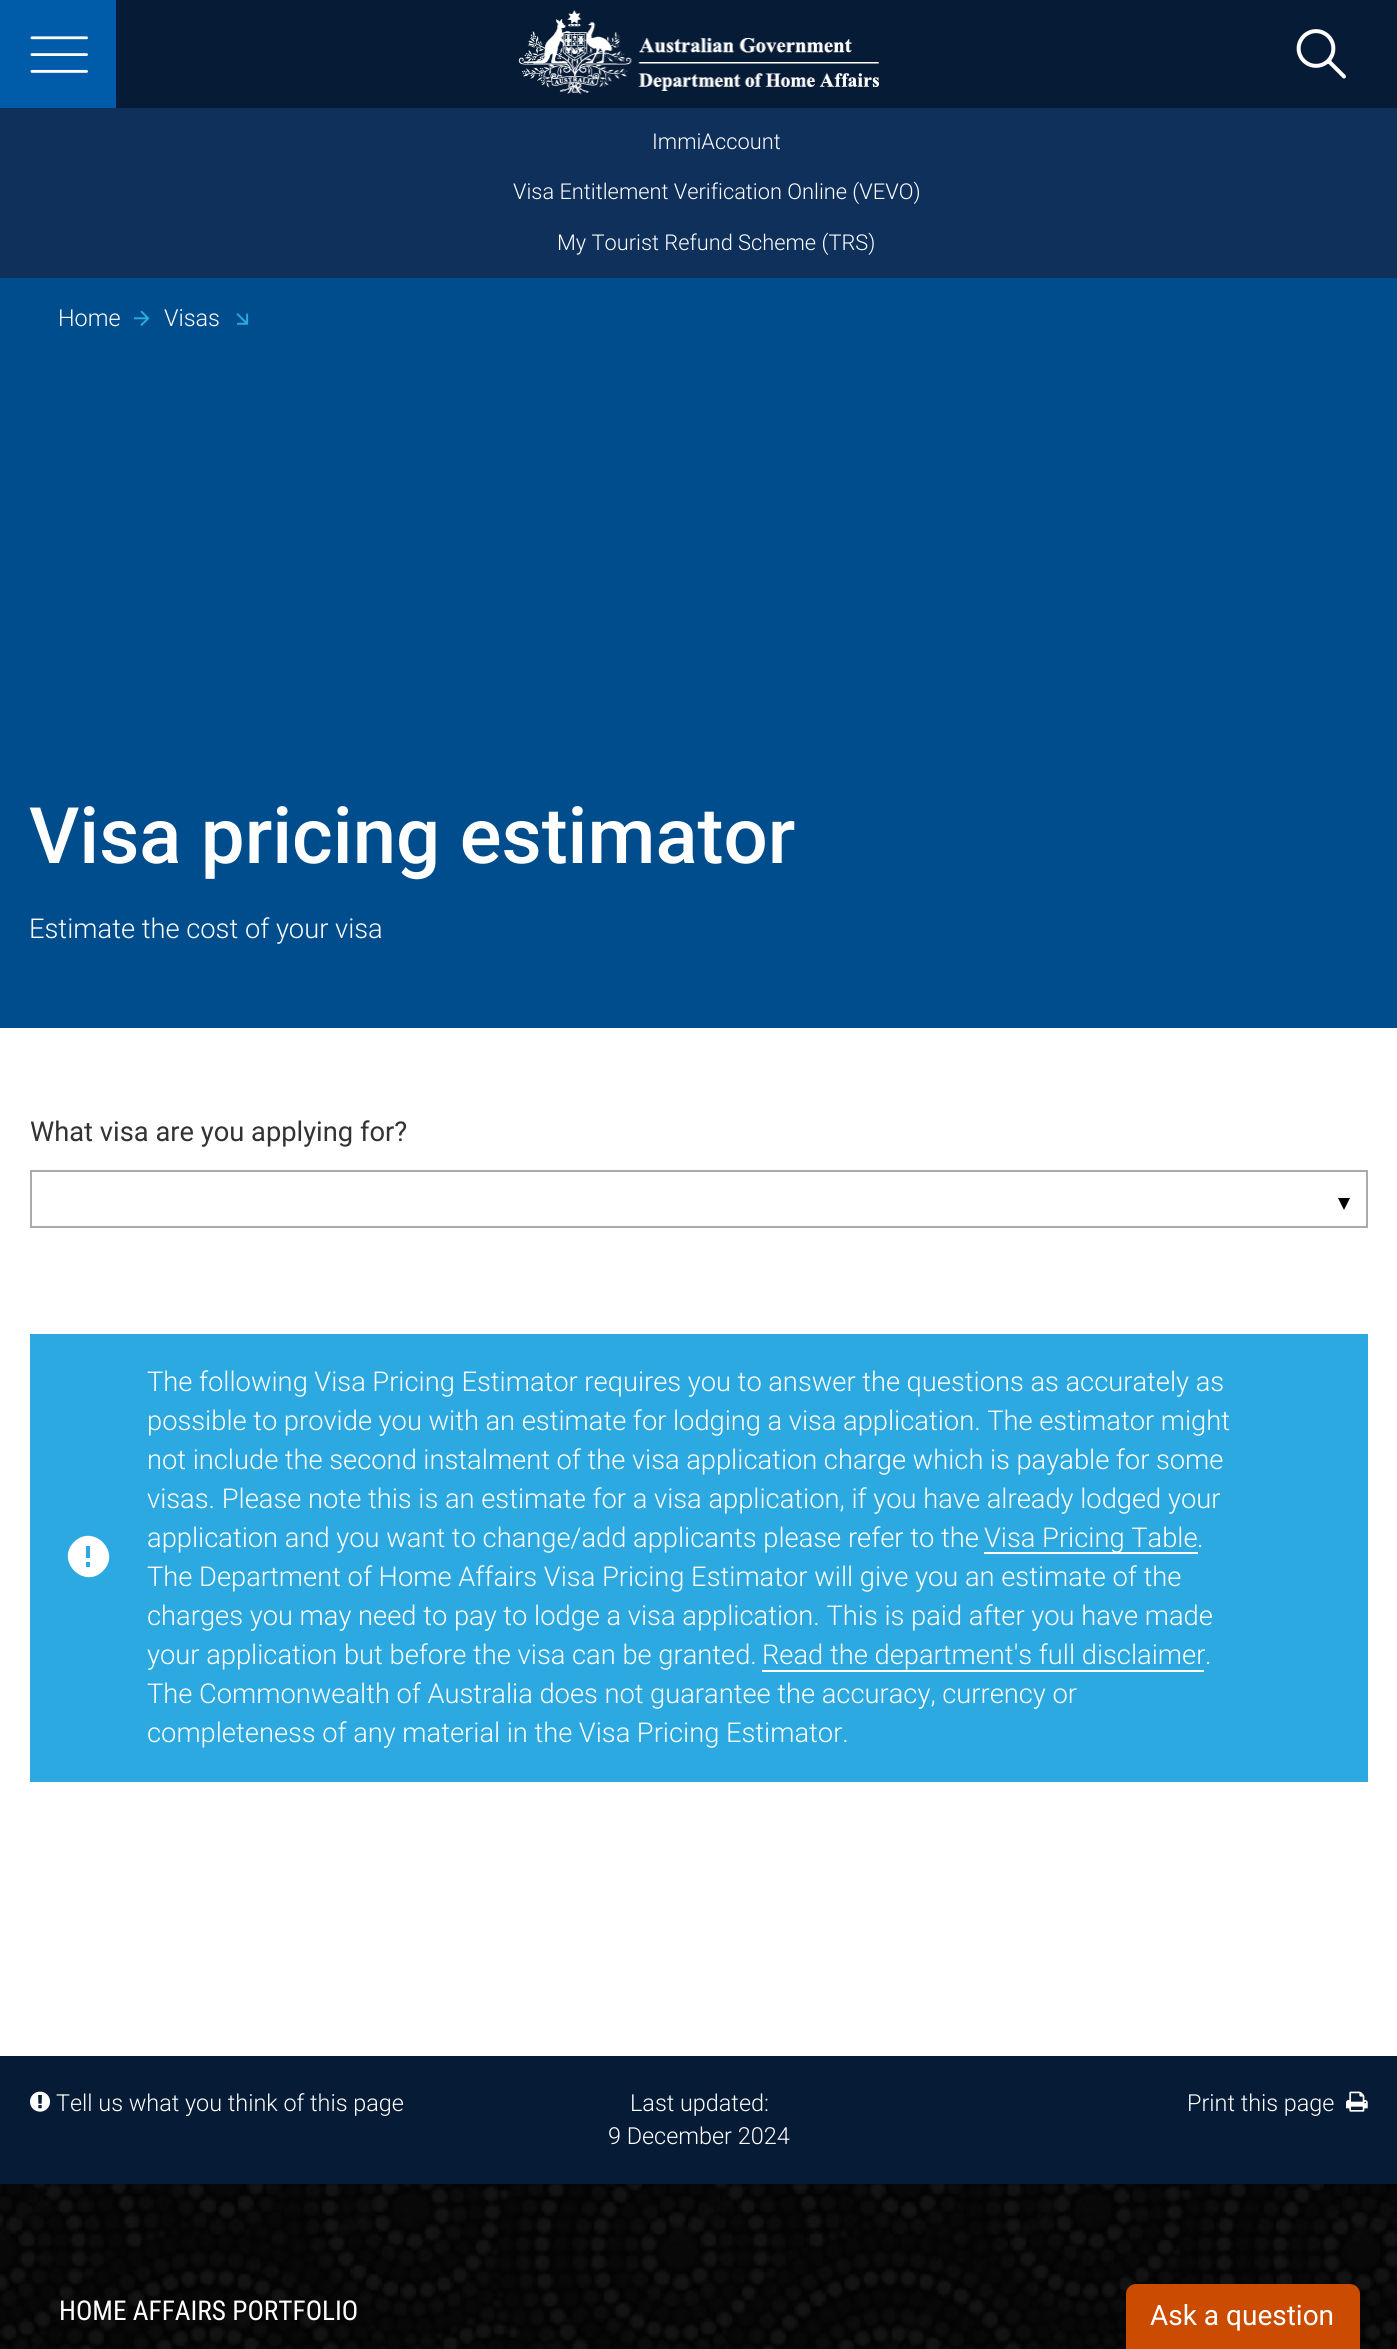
#include <cairo/cairo.h>
#include <math.h>
#include <stddef.h>

static cairo_t *cr;

static void use_color(int r, int g, int b) {
  cairo_set_source_rgb(cr, r / 255.0, g / 255.0, b / 255.0);
}

static void text(double x, double y, const char *s, const char *family, double size, int italic, int bold, int r, int g, int b) {
  cairo_select_font_face(cr, family, italic ? CAIRO_FONT_SLANT_ITALIC : CAIRO_FONT_SLANT_NORMAL,
    bold ? CAIRO_FONT_WEIGHT_BOLD : CAIRO_FONT_WEIGHT_NORMAL);
  cairo_set_font_size(cr, size);
  use_color(r, g, b);
  cairo_move_to(cr, x, y);
  cairo_show_text(cr, s);
}

static void spaced_text(double x, double y, const char *s, double letter, double word) {
  cairo_move_to(cr, x, y);
  while (*s) {
    char ch[5] = {0};
    int n = 0;
    do ch[n++] = *s++; while ((*s & 0xC0) == 0x80);
    cairo_show_text(cr, ch);
    cairo_rel_move_to(cr, letter + word * (*ch == ' '), 0);
  }
}

static void box(double x, double y, double w, double h, int r, int g, int b) {
  use_color(r, g, b);
  cairo_rectangle(cr, x, y, w, h);
  cairo_fill(cr);
}

static void picture(const char *path, double x, double y, double w, double h) {
  cairo_surface_t *image = cairo_image_surface_create_from_png(path);
  cairo_save(cr);
  cairo_set_source_surface(cr, image, x, y);
  cairo_rectangle(cr, x, y, w, h);
  cairo_fill(cr);
  cairo_restore(cr);
  cairo_surface_destroy(image);
}

static void draw(void) {
  use_color(0, 77, 142);
  cairo_paint(cr);
  box(116, 0, 1281, 108, 6, 27, 54);
  box(0, 0, 116, 108, 0, 91, 168);
  picture("img_01.png", 30, 36, 58, 37);
  picture("img_02.png", 518, 10, 361, 84);
  picture("img_03.png", 1296, 29, 50, 50);
  box(0, 108, 1397, 170, 14, 48, 90);
  picture("img_04.png", 133, 310, 17, 16);
  picture("img_05.png", 236, 313, 13, 12);
  box(0, 1028, 1397, 1028, 255, 255, 255);
  cairo_rectangle(cr, 31, 1171, 1336, 56);
  use_color(170, 170, 170);
  cairo_stroke(cr);
  use_color(0, 0, 0);
  cairo_new_path(cr);
  cairo_move_to(cr, 1338, 1198);
  cairo_line_to(cr, 1350, 1198);
  cairo_line_to(cr, 1344, 1210);
  cairo_close_path(cr);
  cairo_fill(cr);
  box(30, 1334, 1338, 448, 43, 169, 224);
  use_color(255, 255, 255);
  cairo_new_path(cr);
  cairo_move_to(cr, 90, 1558);
  cairo_line_to(cr, 90, 1546);
  cairo_line_to(cr, 86, 1546);
  cairo_line_to(cr, 86, 1558);
  cairo_close_path(cr);
  cairo_move_to(cr, 90, 1567);
  cairo_line_to(cr, 90, 1562);
  cairo_line_to(cr, 86, 1562);
  cairo_line_to(cr, 86, 1567);
  cairo_close_path(cr);
  cairo_move_to(cr, 74, 1542);
  cairo_curve_to(cr, 93, 1523, 122, 1552, 103, 1571);
  cairo_curve_to(cr, 84, 1590, 55, 1561, 74, 1542);
  cairo_close_path(cr);
  cairo_fill(cr);
  box(984, 1552, 214, 2, 255, 255, 255);
  box(762, 1670, 442, 2, 255, 255, 255);
  box(0, 2056, 1397, 128, 6, 27, 54);
  picture("img_06.png", 30, 2091, 21, 21);
  picture("img_07.png", 1346, 2091, 22, 21);
  box(0, 2184, 1397, 165, 0, 0, 0);
  picture("img_08.png", 0, 2184, 1397, 165);
  use_color(203, 75, 0);
  cairo_new_path(cr);
  cairo_move_to(cr, 1136, 2284);
  cairo_line_to(cr, 1350, 2284);
  cairo_curve_to(cr, 1355.5, 2284, 1360, 2288.5, 1360, 2294);
  cairo_line_to(cr, 1360, 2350);
  cairo_line_to(cr, 1126, 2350);
  cairo_line_to(cr, 1126, 2294);
  cairo_curve_to(cr, 1126, 2288.5, 1130.5, 2284, 1136, 2284);
  cairo_close_path(cr);
  cairo_fill(cr);
  text(652, 149, "ImmiAccount", "Roboto Light", 21.8, 0, 0, 255, 255, 255);
  text(513, 199, "Visa Entitlement Verification Online (VEVO)", "Roboto Light", 21.8, 0, 0, 255, 255, 255);
  text(557, 250, "My Tourist Refund Scheme (TRS)", "Roboto Light", 21.8, 0, 0, 255, 255, 255);
  text(58, 326, "Home", "Roboto Light", 23.4, 0, 0, 255, 255, 255);
  text(164, 326, "Visas", "Roboto Light", 23.4, 0, 0, 255, 255, 255);
  text(29, 863, "Visa pricing estimator", "Roboto Medium", 78, 0, 0, 255, 255, 255);
  text(29, 938, "Estimate the cost of your visa", "Roboto Light", 27.3, 0, 0, 255, 255, 255);
  text(30, 1141, "What visa are you applying for?", "Roboto", 27.3, 0, 0, 51, 51, 51);
  cairo_select_font_face(cr, "Roboto Light", CAIRO_FONT_SLANT_NORMAL, CAIRO_FONT_WEIGHT_NORMAL);
  use_color(255, 255, 255);
  spaced_text(147, 1391, "The following Visa Pricing Estimator requires you to answer the questions as accurately as", 0, -0.1);
  spaced_text(147, 1430, "possible to provide you with an estimate for lodging a visa application. The estimator might", 0, -0.1);
  spaced_text(147, 1469, "not include the second instalment of the visa application charge which is payable for some", 0, -0.1);
  text(147, 1508, "visas. Please note this is an estimate for a visa application, if you have already lodged your", "Roboto Light", 27.3, 0, 0, 255, 255, 255);
  text(147, 1547, "application and you want to change/add applicants please refer to the", "Roboto Light", 27.3, 0, 0, 255, 255, 255);
  text(984, 1547, "Visa Pricing Table", "Roboto Light", 27.3, 0, 0, 255, 255, 255);
  text(1197, 1547, ".", "Roboto Light", 27.3, 0, 0, 255, 255, 255);
  text(147, 1586, "The Department of Home Affairs Visa Pricing Estimator will give you an estimate of the", "Roboto Light", 27.3, 0, 0, 255, 255, 255);
  text(147, 1625, "charges you may need to pay to lodge a visa application. This is paid after you have made", "Roboto Light", 27.3, 0, 0, 255, 255, 255);
  text(147, 1664, "your application but before the visa can be granted.", "Roboto Light", 27.3, 0, 0, 255, 255, 255);
  text(762, 1664, "Read the department's full disclaimer", "Roboto Light", 27.3, 0, 0, 255, 255, 255);
  text(1205, 1664, ".", "Roboto Light", 27.3, 0, 0, 255, 255, 255);
  spaced_text(147, 1703, "The Commonwealth of Australia does not guarantee the accuracy, currency or", 0, -0.1);
  spaced_text(147, 1742, "completeness of any material in the Visa Pricing Estimator.", 0, -0.1);
  text(56, 2111, "Tell us what you think of this page", "Roboto Light", 23.4, 0, 0, 255, 255, 255);
  text(630, 2111, "Last updated:", "Roboto Light", 23.4, 0, 0, 255, 255, 255);
  text(608, 2144, "9 December 2024", "Roboto Light", 23.4, 0, 0, 255, 255, 255);
  text(1187, 2111, "Print this page", "Roboto Light", 23.4, 0, 0, 255, 255, 255);
  text(59, 2320, "HOME AFFAIRS PORTFOLIO", "Roboto Condensed", 27.3, 0, 0, 255, 255, 255);
  text(1150, 2325, "Ask a question", "Roboto", 28, 0, 0, 255, 255, 255);
}

int main(void) {
  cairo_surface_t *surface = cairo_image_surface_create(CAIRO_FORMAT_RGB24, 1397, 2349);
  cr = cairo_create(surface);
  cairo_font_options_t *options = cairo_font_options_create();
  cairo_font_options_set_hint_metrics(options, CAIRO_HINT_METRICS_OFF);
  cairo_font_options_set_hint_style(options, CAIRO_HINT_STYLE_NONE);
  cairo_set_font_options(cr, options);
  cairo_set_miter_limit(cr, 4);
  draw();
  cairo_surface_write_to_png(surface, "out.png");
  cairo_font_options_destroy(options);
  cairo_destroy(cr);
  cairo_surface_destroy(surface);
  return 0;
}
